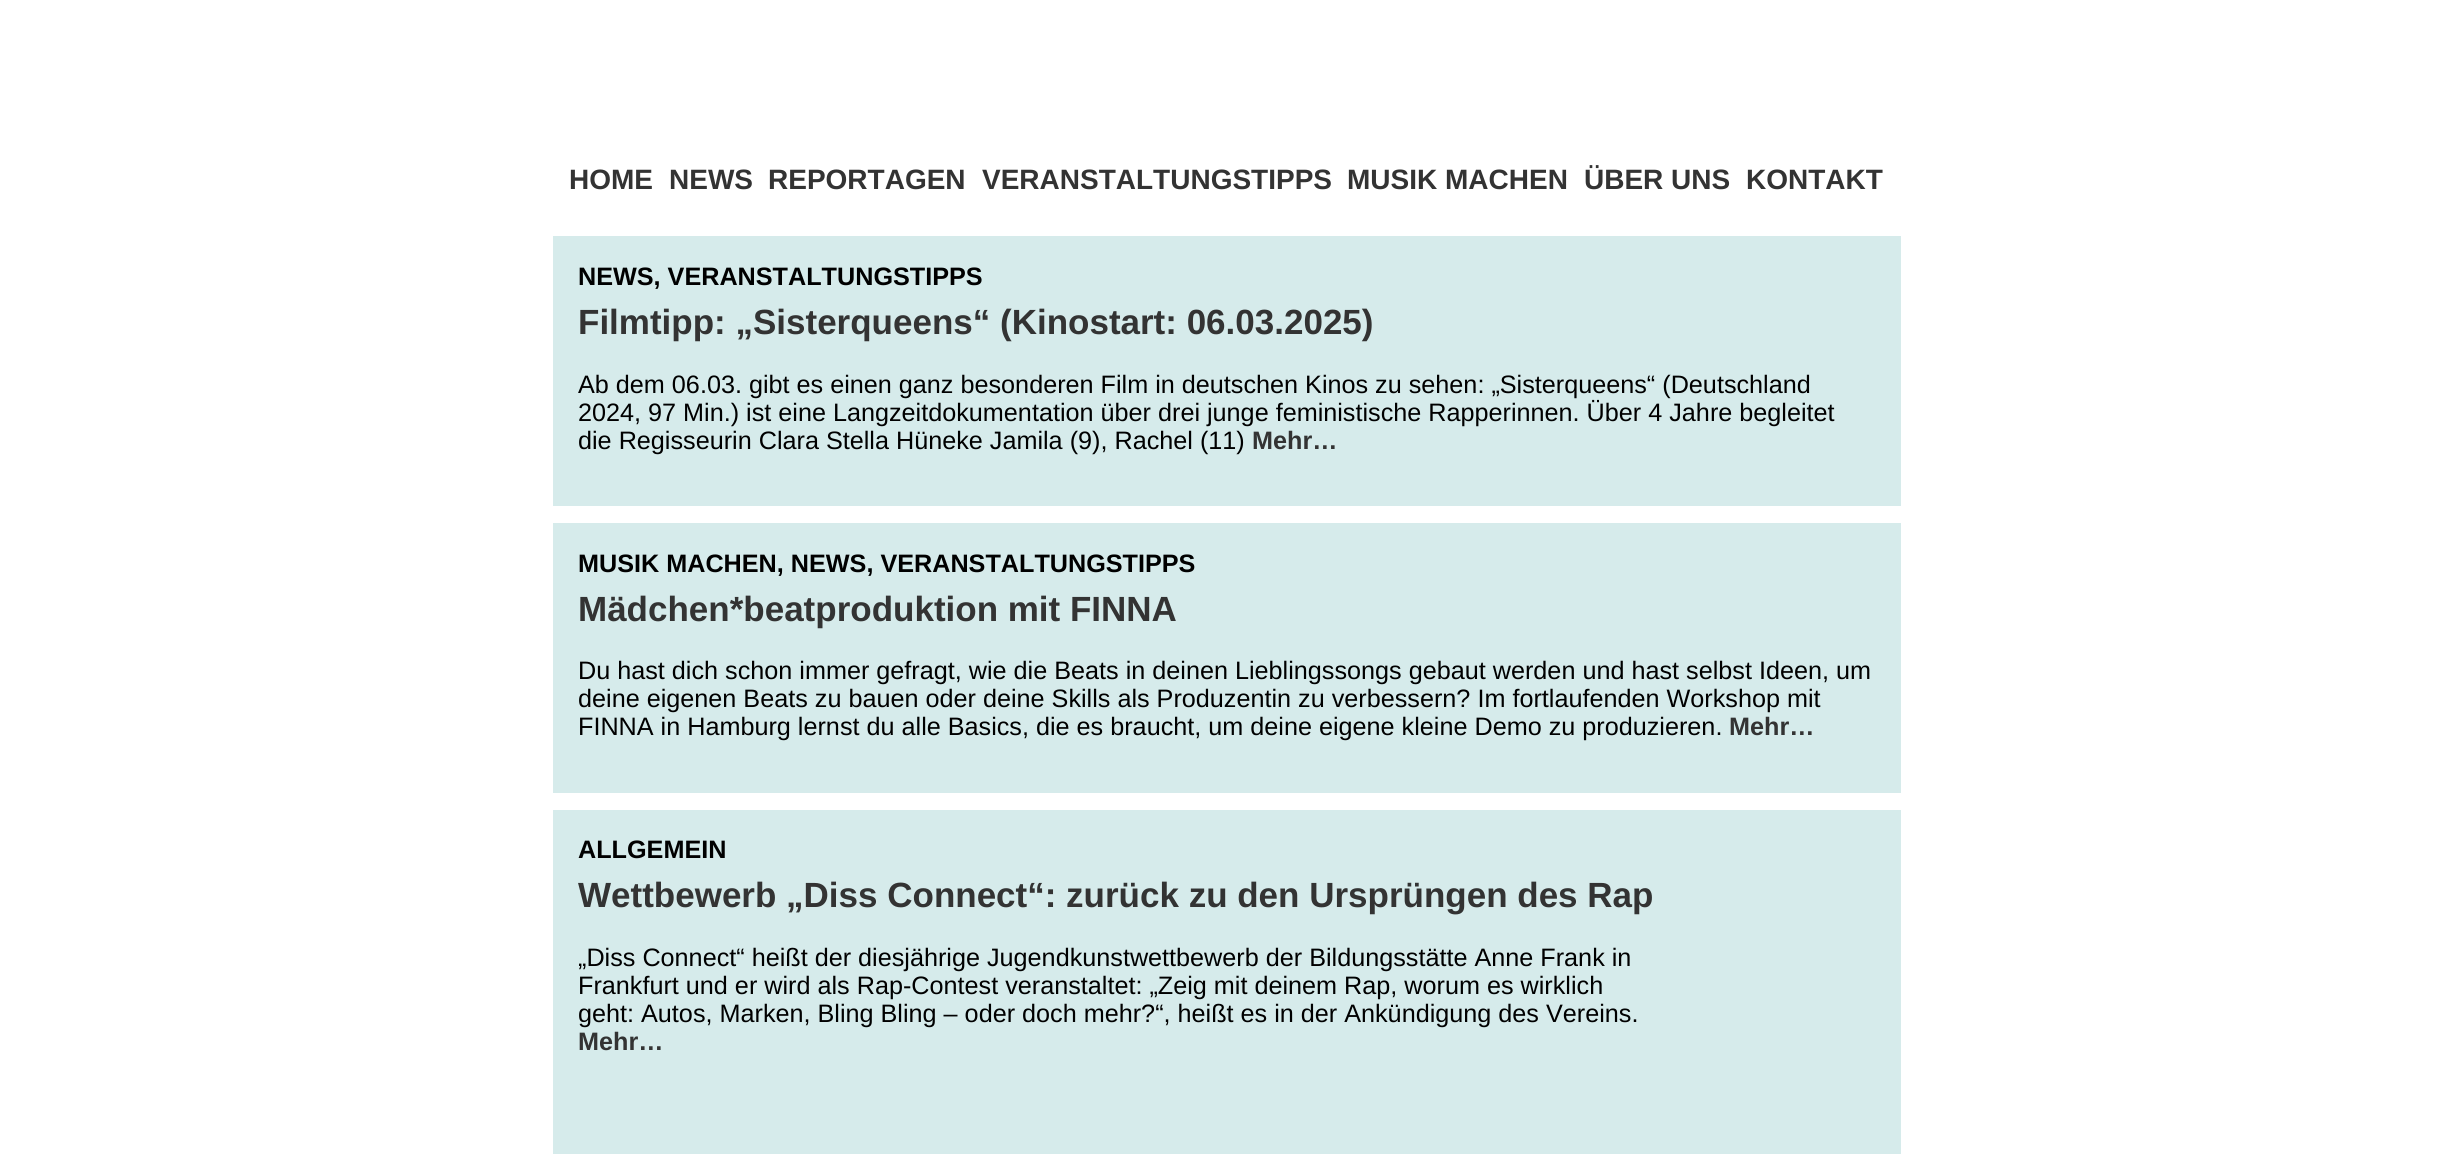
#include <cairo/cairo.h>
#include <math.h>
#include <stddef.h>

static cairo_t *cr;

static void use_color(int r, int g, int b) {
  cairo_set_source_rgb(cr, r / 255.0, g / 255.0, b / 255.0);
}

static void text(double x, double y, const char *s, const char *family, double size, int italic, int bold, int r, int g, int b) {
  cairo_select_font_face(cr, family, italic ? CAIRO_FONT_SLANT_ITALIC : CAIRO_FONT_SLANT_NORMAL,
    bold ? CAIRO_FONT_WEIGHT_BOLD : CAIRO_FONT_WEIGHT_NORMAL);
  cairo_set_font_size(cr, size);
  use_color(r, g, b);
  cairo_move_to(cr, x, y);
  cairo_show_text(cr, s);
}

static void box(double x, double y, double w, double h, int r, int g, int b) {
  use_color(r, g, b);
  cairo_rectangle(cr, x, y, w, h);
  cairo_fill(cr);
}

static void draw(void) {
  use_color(255, 255, 255);
  cairo_paint(cr);
  box(553, 236, 1348, 270, 214, 235, 235);
  box(553, 523, 1348, 270, 214, 235, 235);
  box(553, 810, 1348, 344, 214, 235, 235);
  text(569, 189, "HOME", "Liberation Sans", 28, 0, 1, 51, 51, 51);
  text(669, 189, "NEWS", "Liberation Sans", 28, 0, 1, 51, 51, 51);
  text(768, 189, "REPORTAGEN", "Liberation Sans", 28, 0, 1, 51, 51, 51);
  text(982, 189, "VERANSTALTUNGSTIPPS", "Liberation Sans", 28, 0, 1, 51, 51, 51);
  text(1347, 189, "MUSIK MACHEN", "Liberation Sans", 28, 0, 1, 51, 51, 51);
  text(1584, 189, "ÜBER UNS", "Liberation Sans", 28, 0, 1, 51, 51, 51);
  text(1746, 189, "KONTAKT", "Liberation Sans", 28, 0, 1, 51, 51, 51);
  text(578, 285, "NEWS, VERANSTALTUNGSTIPPS", "Liberation Sans", 25.2, 0, 1, 0, 0, 0);
  text(578, 334, "Filmtipp: „Sisterqueens“ (Kinostart: 06.03.2025)", "Liberation Sans", 35, 0, 1, 51, 51, 51);
  text(578, 393, "Ab dem 06.03. gibt es einen ganz besonderen Film in deutschen Kinos zu sehen: „Sisterqueens“ (Deutschland", "Liberation Sans", 25.2, 0, 0, 0, 0, 0);
  text(578, 421, "2024, 97 Min.) ist eine Langzeitdokumentation über drei junge feministische Rapperinnen. Über 4 Jahre begleitet", "Liberation Sans", 25.2, 0, 0, 0, 0, 0);
  text(578, 449, "die Regisseurin Clara Stella Hüneke Jamila (9), Rachel (11)", "Liberation Sans", 25.2, 0, 0, 0, 0, 0);
  text(1252, 449, "Mehr…", "Liberation Sans", 25.2, 0, 1, 51, 51, 51);
  text(578, 572, "MUSIK MACHEN, NEWS, VERANSTALTUNGSTIPPS", "Liberation Sans", 25.2, 0, 1, 0, 0, 0);
  text(578, 621, "Mädchen*beatproduktion mit FINNA", "Liberation Sans", 35, 0, 1, 51, 51, 51);
  text(578, 679, "Du hast dich schon immer gefragt, wie die Beats in deinen Lieblingssongs gebaut werden und hast selbst Ideen, um", "Liberation Sans", 25.2, 0, 0, 0, 0, 0);
  text(578, 707, "deine eigenen Beats zu bauen oder deine Skills als Produzentin zu verbessern? Im fortlaufenden Workshop mit", "Liberation Sans", 25.2, 0, 0, 0, 0, 0);
  text(578, 735, "FINNA in Hamburg lernst du alle Basics, die es braucht, um deine eigene kleine Demo zu produzieren.", "Liberation Sans", 25.2, 0, 0, 0, 0, 0);
  text(1729, 735, "Mehr…", "Liberation Sans", 25.2, 0, 1, 51, 51, 51);
  text(578, 858, "ALLGEMEIN", "Liberation Sans", 25.2, 0, 1, 0, 0, 0);
  text(578, 907, "Wettbewerb „Diss Connect“: zurück zu den Ursprüngen des Rap", "Liberation Sans", 35, 0, 1, 51, 51, 51);
  text(578, 966, "„Diss Connect“ heißt der diesjährige Jugendkunstwettbewerb der Bildungsstätte Anne Frank in", "Liberation Sans", 25.2, 0, 0, 0, 0, 0);
  text(578, 994, "Frankfurt und er wird als Rap-Contest veranstaltet: „Zeig mit deinem Rap, worum es wirklich", "Liberation Sans", 25.2, 0, 0, 0, 0, 0);
  text(578, 1022, "geht: Autos, Marken, Bling Bling – oder doch mehr?“, heißt es in der Ankündigung des Vereins.", "Liberation Sans", 25.2, 0, 0, 0, 0, 0);
  text(578, 1050, "Mehr…", "Liberation Sans", 25.2, 0, 1, 51, 51, 51);
}

int main(void) {
  cairo_surface_t *surface = cairo_image_surface_create(CAIRO_FORMAT_RGB24, 2451, 1154);
  cr = cairo_create(surface);
  cairo_font_options_t *options = cairo_font_options_create();
  cairo_font_options_set_hint_metrics(options, CAIRO_HINT_METRICS_OFF);
  cairo_font_options_set_hint_style(options, CAIRO_HINT_STYLE_NONE);
  cairo_set_font_options(cr, options);
  cairo_set_miter_limit(cr, 4);
  draw();
  cairo_surface_write_to_png(surface, "out.png");
  cairo_font_options_destroy(options);
  cairo_destroy(cr);
  cairo_surface_destroy(surface);
  return 0;
}
